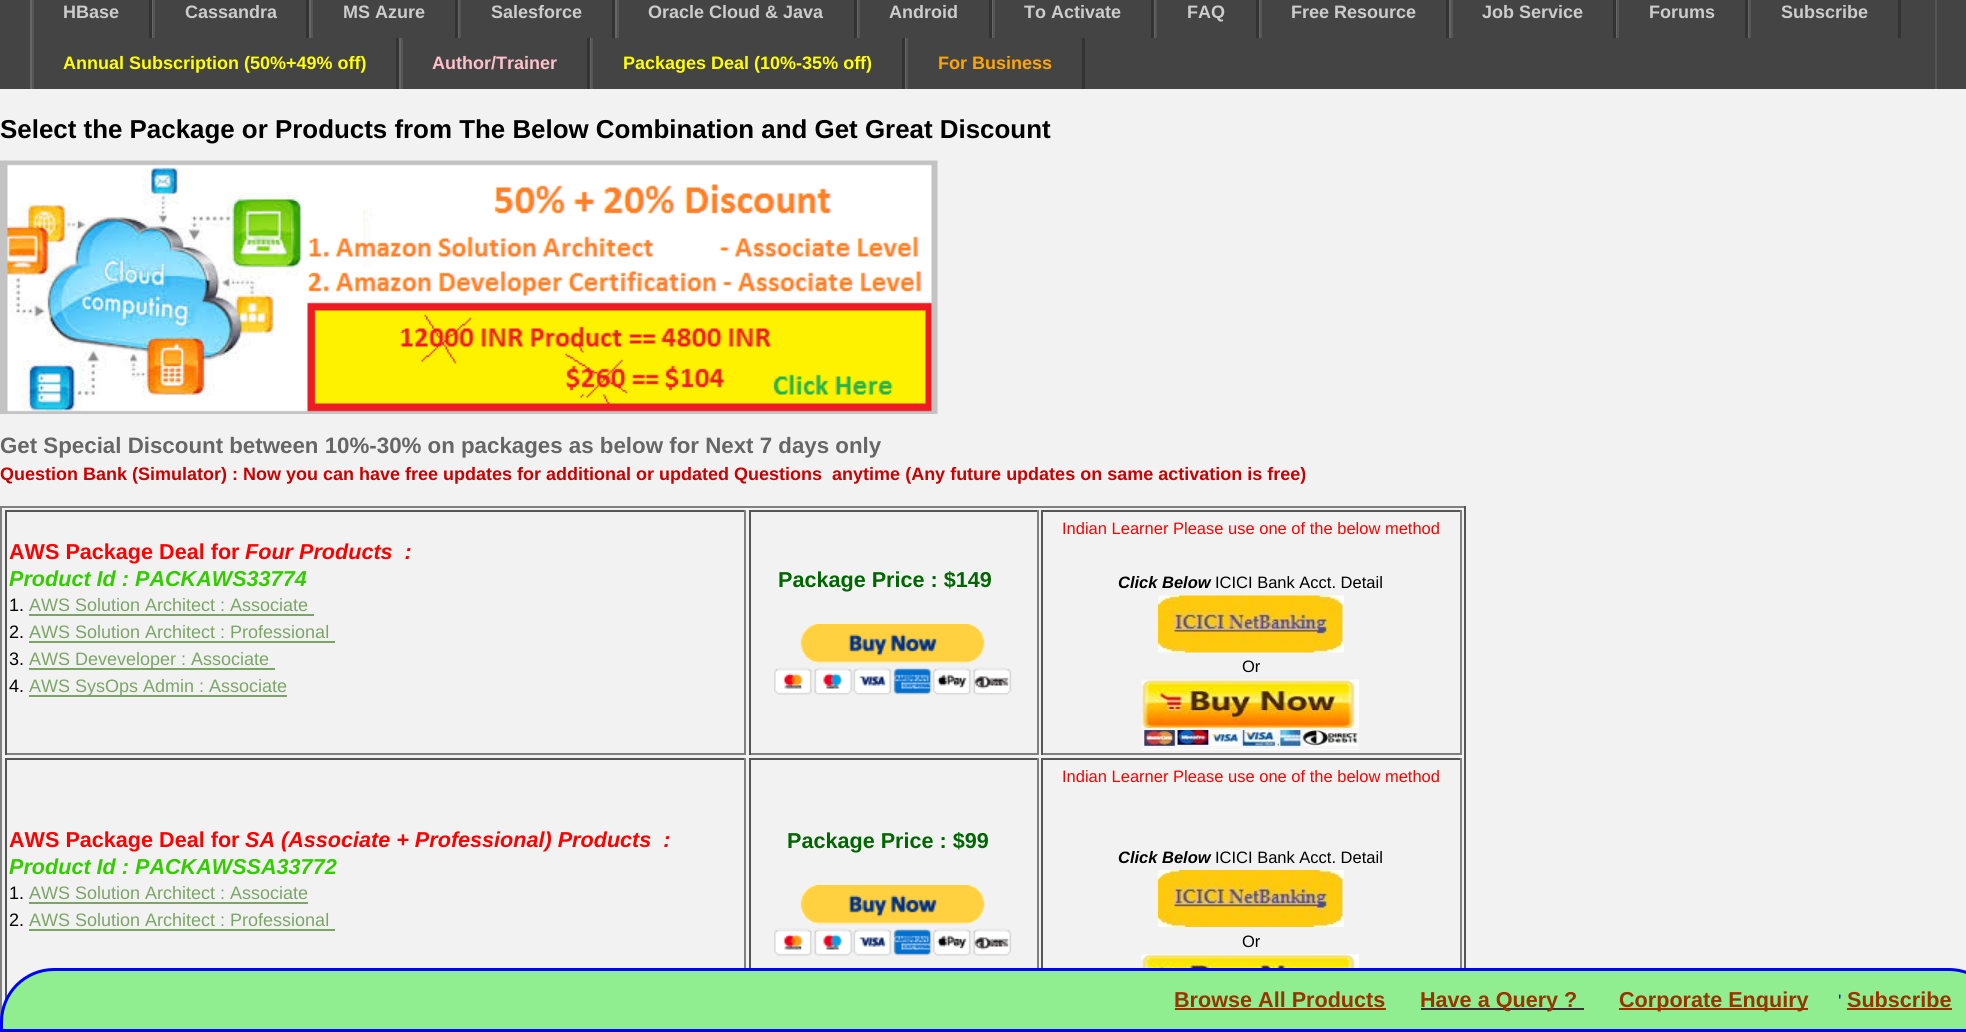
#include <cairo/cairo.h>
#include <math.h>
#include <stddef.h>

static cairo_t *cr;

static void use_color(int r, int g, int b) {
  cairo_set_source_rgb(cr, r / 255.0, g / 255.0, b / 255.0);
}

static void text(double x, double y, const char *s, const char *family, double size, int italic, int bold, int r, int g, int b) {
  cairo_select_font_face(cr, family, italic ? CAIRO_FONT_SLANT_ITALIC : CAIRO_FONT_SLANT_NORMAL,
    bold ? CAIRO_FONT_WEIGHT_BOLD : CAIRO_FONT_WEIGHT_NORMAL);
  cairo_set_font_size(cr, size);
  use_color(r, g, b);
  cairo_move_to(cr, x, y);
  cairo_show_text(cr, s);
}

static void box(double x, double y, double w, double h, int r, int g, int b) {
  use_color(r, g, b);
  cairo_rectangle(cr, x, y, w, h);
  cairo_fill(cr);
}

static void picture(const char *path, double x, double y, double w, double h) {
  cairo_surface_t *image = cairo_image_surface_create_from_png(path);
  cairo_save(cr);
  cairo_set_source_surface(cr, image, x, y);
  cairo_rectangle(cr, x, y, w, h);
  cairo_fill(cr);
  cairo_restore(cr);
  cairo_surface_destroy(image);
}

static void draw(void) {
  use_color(242, 242, 242);
  cairo_paint(cr);
  box(0, 0, 1966, 89, 68, 68, 68);
  box(1935, 0, 2, 89, 85, 85, 85);
  box(149, 0, 3, 38, 51, 51, 51);
  box(30, 0, 2, 89, 102, 102, 102);
  box(32, 0, 2, 89, 85, 85, 85);
  box(306, 0, 3, 38, 51, 51, 51);
  box(152, 0, 1, 38, 102, 102, 102);
  box(153, 0, 2, 38, 85, 85, 85);
  box(455, 0, 3, 38, 51, 51, 51);
  box(309, 0, 2, 38, 102, 102, 102);
  box(311, 0, 2, 38, 85, 85, 85);
  box(612, 0, 3, 38, 51, 51, 51);
  box(458, 0, 1, 38, 102, 102, 102);
  box(459, 0, 2, 38, 85, 85, 85);
  box(854, 0, 3, 38, 51, 51, 51);
  box(615, 0, 2, 38, 102, 102, 102);
  box(617, 0, 2, 38, 85, 85, 85);
  box(989, 0, 3, 38, 51, 51, 51);
  box(857, 0, 1, 38, 102, 102, 102);
  box(858, 0, 2, 38, 85, 85, 85);
  box(1151, 0, 3, 38, 51, 51, 51);
  box(992, 0, 1, 38, 102, 102, 102);
  box(993, 0, 2, 38, 85, 85, 85);
  box(1256, 0, 3, 38, 51, 51, 51);
  box(1154, 0, 1, 38, 102, 102, 102);
  box(1155, 0, 2, 38, 85, 85, 85);
  box(1446, 0, 3, 38, 51, 51, 51);
  box(1259, 0, 1, 38, 102, 102, 102);
  box(1260, 0, 2, 38, 85, 85, 85);
  box(1613, 0, 3, 38, 51, 51, 51);
  box(1449, 0, 2, 38, 102, 102, 102);
  box(1451, 0, 2, 38, 85, 85, 85);
  box(1745, 0, 3, 38, 51, 51, 51);
  box(1616, 0, 1, 38, 102, 102, 102);
  box(1617, 0, 2, 38, 85, 85, 85);
  box(1898, 0, 3, 38, 51, 51, 51);
  box(1748, 0, 1, 38, 102, 102, 102);
  box(1749, 0, 2, 38, 85, 85, 85);
  box(396, 38, 3, 51, 51, 51, 51);
  box(587, 38, 3, 51, 51, 51, 51);
  box(399, 38, 2, 51, 102, 102, 102);
  box(401, 38, 2, 51, 85, 85, 85);
  box(902, 38, 3, 51, 51, 51, 51);
  box(590, 38, 1, 51, 102, 102, 102);
  box(591, 38, 2, 51, 85, 85, 85);
  box(1082, 38, 3, 51, 51, 51, 51);
  box(905, 38, 1, 51, 102, 102, 102);
  box(906, 38, 2, 51, 85, 85, 85);
  picture("img_01.png", 0, 160, 938, 254);
  box(0, 506, 1466, 2, 128, 128, 128);
  box(1464, 506, 2, 462, 85, 85, 85);
  box(0, 506, 2, 516, 128, 128, 128);
  box(5, 510, 741, 2, 85, 85, 85);
  box(744, 510, 2, 245, 128, 128, 128);
  box(5, 753, 741, 2, 128, 128, 128);
  box(5, 510, 2, 245, 85, 85, 85);
  box(29, 614, 285, 2, 123, 165, 102);
  box(29, 641, 306, 2, 123, 165, 102);
  box(29, 668, 246, 2, 123, 165, 102);
  box(29, 695, 258, 2, 123, 165, 102);
  box(749, 510, 289, 2, 85, 85, 85);
  box(1037, 510, 2, 245, 128, 128, 128);
  box(749, 753, 289, 2, 128, 128, 128);
  box(749, 510, 2, 245, 85, 85, 85);
  picture("img_02.png", 774, 624, 238, 71);
  box(1041, 510, 420, 2, 85, 85, 85);
  box(1460, 510, 2, 245, 128, 128, 128);
  box(1041, 753, 420, 2, 128, 128, 128);
  box(1041, 510, 2, 245, 85, 85, 85);
  picture("img_03.png", 1158, 595, 186, 58);
  picture("img_04.png", 1141, 679, 218, 71);
  box(5, 758, 741, 2, 85, 85, 85);
  box(744, 758, 2, 210, 128, 128, 128);
  box(5, 758, 2, 242, 85, 85, 85);
  box(29, 902, 279, 2, 123, 165, 102);
  box(29, 929, 306, 2, 123, 165, 102);
  box(749, 758, 289, 2, 85, 85, 85);
  box(1037, 758, 2, 210, 128, 128, 128);
  box(749, 758, 2, 210, 85, 85, 85);
  picture("img_02.png", 774, 885, 238, 71);
  box(1041, 758, 420, 2, 85, 85, 85);
  box(1460, 758, 2, 210, 128, 128, 128);
  box(1041, 758, 2, 210, 85, 85, 85);
  picture("img_05.png", 1158, 870, 186, 57);
  picture("img_06.png", 1141, 954, 218, 14);
  use_color(144, 238, 144);
  cairo_new_path(cr);
  cairo_move_to(cr, 54, 969.5);
  cairo_line_to(cr, 1949, 969.5);
  cairo_curve_to(cr, 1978, 969.5, 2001.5, 993, 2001.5, 1022);
  cairo_line_to(cr, 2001.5, 1030.5);
  cairo_line_to(cr, 1.5, 1030.5);
  cairo_line_to(cr, 1.5, 1022);
  cairo_curve_to(cr, 1.5, 993, 25, 969.5, 54, 969.5);
  cairo_close_path(cr);
  cairo_fill_preserve(cr);
  use_color(0, 0, 255);
  cairo_set_line_width(cr, 3);
  cairo_stroke(cr);
  box(1175, 1008, 211, 2, 153, 51, 0);
  box(1421, 1008, 163, 2, 51, 51, 51);
  box(1619, 1008, 189, 2, 153, 51, 0);
  box(1847, 1008, 105, 2, 153, 51, 0);
  text(63, 18, "HBase", "Liberation Sans", 18, 0, 1, 204, 204, 204);
  text(185, 18, "Cassandra", "Liberation Sans", 18, 0, 1, 204, 204, 204);
  text(343, 18, "MS Azure", "Liberation Sans", 18, 0, 1, 204, 204, 204);
  text(491, 18, "Salesforce", "Liberation Sans", 18, 0, 1, 204, 204, 204);
  text(648, 18, "Oracle Cloud & Java", "Liberation Sans", 18, 0, 1, 204, 204, 204);
  text(889, 18, "Android", "Liberation Sans", 18, 0, 1, 204, 204, 204);
  text(1024, 18, "To Activate", "Liberation Sans", 18, 0, 1, 204, 204, 204);
  text(1187, 18, "FAQ", "Liberation Sans", 18, 0, 1, 204, 204, 204);
  text(1291, 18, "Free Resource", "Liberation Sans", 18, 0, 1, 204, 204, 204);
  text(1482, 18, "Job Service", "Liberation Sans", 18, 0, 1, 204, 204, 204);
  text(1649, 18, "Forums", "Liberation Sans", 18, 0, 1, 204, 204, 204);
  text(1781, 18, "Subscribe", "Liberation Sans", 18, 0, 1, 204, 204, 204);
  text(63, 69, "Annual Subscription (50%+49% off)", "Liberation Sans", 18, 0, 1, 255, 255, 0);
  text(432, 69, "Author/Trainer", "Liberation Sans", 18, 0, 1, 255, 192, 203);
  text(623, 69, "Packages Deal (10%-35% off)", "Liberation Sans", 18, 0, 1, 255, 255, 0);
  text(938, 69, "For Business", "Liberation Sans", 18, 0, 1, 255, 165, 0);
  text(0, 138, "Select the Package or Products from The Below Combination and Get Great Discount", "Liberation Sans", 25.9, 0, 1, 0, 0, 0);
  text(0, 453, "Get Special Discount between 10%-30% on packages as below for Next 7 days only", "Liberation Sans", 22.3, 0, 1, 102, 102, 102);
  text(0, 480, "Question Bank (Simulator) : Now you can have free updates for additional or updated Questions  anytime (Any future updates on same activation is free)", "Liberation Sans", 18, 0, 1, 204, 0, 0);
  text(9, 559, "AWS Package Deal for", "Liberation Sans", 21.6, 0, 1, 255, 0, 0);
  text(245, 559, "Four Products  :", "Liberation Sans", 21.6, 1, 1, 255, 0, 0);
  text(9, 586, "Product Id : PACKAWS33774", "Liberation Sans", 21.6, 1, 1, 51, 204, 0);
  text(9, 611, "1.", "Liberation Sans", 18, 0, 0, 0, 0, 0);
  text(29, 611, "AWS Solution Architect : Associate", "Liberation Sans", 18, 0, 0, 123, 165, 102);
  text(9, 638, "2.", "Liberation Sans", 18, 0, 0, 0, 0, 0);
  text(29, 638, "AWS Solution Architect : Professional", "Liberation Sans", 18, 0, 0, 123, 165, 102);
  text(9, 665, "3.", "Liberation Sans", 18, 0, 0, 0, 0, 0);
  text(29, 665, "AWS Deveveloper : Associate", "Liberation Sans", 18, 0, 0, 123, 165, 102);
  text(9, 692, "4.", "Liberation Sans", 18, 0, 0, 0, 0, 0);
  text(29, 692, "AWS SysOps Admin : Associate", "Liberation Sans", 18, 0, 0, 123, 165, 102);
  text(778, 587, "Package Price : $149", "Liberation Sans", 21.6, 0, 1, 0, 102, 0);
  text(1062, 534, "Indian Learner Please use one of the below method", "Liberation Sans", 16.5, 0, 0, 255, 0, 0);
  text(1118, 588, "Click Below", "Liberation Sans", 16.5, 1, 1, 0, 0, 0);
  text(1215, 588, "ICICI Bank Acct. Detail", "Liberation Sans", 16.5, 0, 0, 0, 0, 0);
  text(1242, 672, "Or", "Liberation Sans", 16.5, 0, 0, 0, 0, 0);
  text(9, 847, "AWS Package Deal for", "Liberation Sans", 21.6, 0, 1, 255, 0, 0);
  text(245, 847, "SA (Associate + Professional) Products  :", "Liberation Sans", 21.6, 1, 1, 255, 0, 0);
  text(9, 874, "Product Id : PACKAWSSA33772", "Liberation Sans", 21.6, 1, 1, 51, 204, 0);
  text(9, 899, "1.", "Liberation Sans", 18, 0, 0, 0, 0, 0);
  text(29, 899, "AWS Solution Architect : Associate", "Liberation Sans", 18, 0, 0, 123, 165, 102);
  text(9, 926, "2.", "Liberation Sans", 18, 0, 0, 0, 0, 0);
  text(29, 926, "AWS Solution Architect : Professional", "Liberation Sans", 18, 0, 0, 123, 165, 102);
  text(787, 848, "Package Price : $99", "Liberation Sans", 21.6, 0, 1, 0, 102, 0);
  text(1062, 782, "Indian Learner Please use one of the below method", "Liberation Sans", 16.5, 0, 0, 255, 0, 0);
  text(1118, 863, "Click Below", "Liberation Sans", 16.5, 1, 1, 0, 0, 0);
  text(1215, 863, "ICICI Bank Acct. Detail", "Liberation Sans", 16.5, 0, 0, 0, 0, 0);
  text(1242, 947, "Or", "Liberation Sans", 16.5, 0, 0, 0, 0, 0);
  text(1174, 1007, "Browse All Products", "Liberation Sans", 21.6, 0, 1, 153, 51, 0);
  text(1420, 1007, "Have a Query ?", "Liberation Sans", 21.6, 0, 1, 153, 51, 0);
  text(1619, 1007, "Corporate Enquiry", "Liberation Sans", 21.6, 0, 1, 153, 51, 0);
  text(1838, 1007, "'", "Liberation Sans", 18, 0, 0, 0, 0, 255);
  text(1847, 1007, "Subscribe", "Liberation Sans", 21.6, 0, 1, 153, 51, 0);
}

int main(void) {
  cairo_surface_t *surface = cairo_image_surface_create(CAIRO_FORMAT_RGB24, 1966, 1032);
  cr = cairo_create(surface);
  cairo_font_options_t *options = cairo_font_options_create();
  cairo_font_options_set_hint_metrics(options, CAIRO_HINT_METRICS_OFF);
  cairo_font_options_set_hint_style(options, CAIRO_HINT_STYLE_NONE);
  cairo_set_font_options(cr, options);
  cairo_set_miter_limit(cr, 4);
  draw();
  cairo_surface_write_to_png(surface, "out.png");
  cairo_font_options_destroy(options);
  cairo_destroy(cr);
  cairo_surface_destroy(surface);
  return 0;
}
